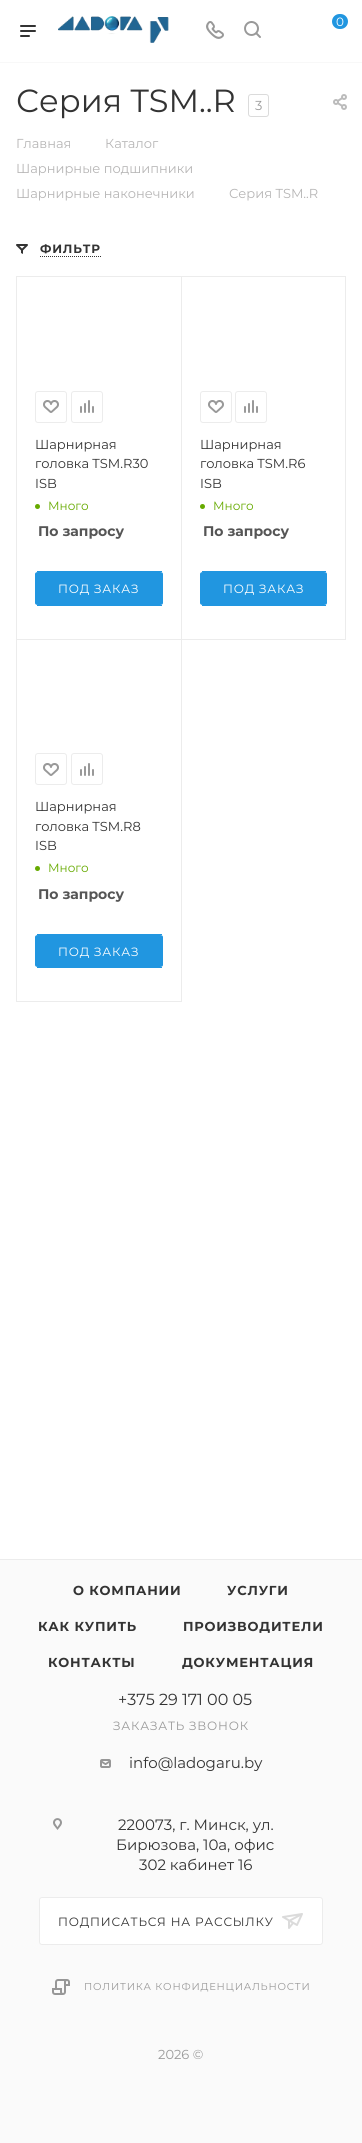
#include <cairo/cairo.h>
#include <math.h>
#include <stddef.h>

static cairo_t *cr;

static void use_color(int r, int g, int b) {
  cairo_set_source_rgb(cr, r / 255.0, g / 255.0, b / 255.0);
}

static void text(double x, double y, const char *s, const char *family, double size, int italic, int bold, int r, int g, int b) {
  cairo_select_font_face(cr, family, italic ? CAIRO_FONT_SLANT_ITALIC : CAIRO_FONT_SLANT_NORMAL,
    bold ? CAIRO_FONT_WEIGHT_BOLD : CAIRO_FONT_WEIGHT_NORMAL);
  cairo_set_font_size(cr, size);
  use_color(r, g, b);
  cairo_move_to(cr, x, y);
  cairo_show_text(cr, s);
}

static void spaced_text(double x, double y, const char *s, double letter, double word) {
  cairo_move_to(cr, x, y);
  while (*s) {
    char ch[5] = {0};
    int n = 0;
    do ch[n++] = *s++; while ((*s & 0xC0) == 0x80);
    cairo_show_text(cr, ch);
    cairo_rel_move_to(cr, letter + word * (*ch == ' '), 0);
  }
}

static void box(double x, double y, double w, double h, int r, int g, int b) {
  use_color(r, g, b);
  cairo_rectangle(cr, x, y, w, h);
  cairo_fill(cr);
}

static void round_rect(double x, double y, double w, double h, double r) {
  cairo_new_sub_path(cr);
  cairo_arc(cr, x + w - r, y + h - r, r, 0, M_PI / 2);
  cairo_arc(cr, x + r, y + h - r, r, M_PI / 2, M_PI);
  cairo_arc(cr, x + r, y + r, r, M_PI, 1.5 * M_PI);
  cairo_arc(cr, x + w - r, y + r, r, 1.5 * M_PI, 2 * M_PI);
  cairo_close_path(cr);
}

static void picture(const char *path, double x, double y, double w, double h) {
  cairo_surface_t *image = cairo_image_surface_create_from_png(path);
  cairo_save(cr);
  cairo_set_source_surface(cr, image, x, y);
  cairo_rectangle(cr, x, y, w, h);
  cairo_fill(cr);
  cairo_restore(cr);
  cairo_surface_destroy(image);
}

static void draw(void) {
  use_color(255, 255, 255);
  cairo_paint(cr);
  box(0, 62, 362, 1, 248, 248, 248);
  picture("img_01.png", 58, 16, 111, 27);
  picture("img_02.png", 206, 21, 18, 18);
  picture("img_03.png", 244, 21, 17, 17);
  use_color(33, 150, 224);
  round_rect(332, 14, 16, 15, 7.5);
  cairo_fill(cr);
  picture("img_04.png", 20, 25, 16, 12);
  round_rect(248.5, 94.5, 20, 22, 2.5);
  use_color(219, 219, 219);
  cairo_set_line_width(cr, 1);
  cairo_stroke(cr);
  picture("img_05.png", 333, 94, 14, 16);
  picture("img_06.png", 16, 244, 12, 10);
  cairo_new_path(cr);
  cairo_move_to(cr, 40, 256.5);
  cairo_line_to(cr, 101, 256.5);
  use_color(51, 51, 51);
  cairo_set_dash(cr, (double[]){1, 1}, 2, 0);
  cairo_stroke(cr);
  cairo_rectangle(cr, 16.5, 276.5, 165, 363);
  use_color(236, 236, 236);
  cairo_set_dash(cr, NULL, 0, 0);
  cairo_stroke(cr);
  round_rect(35.5, 391.5, 31, 31, 2.5);
  cairo_stroke(cr);
  picture("img_07.png", 43, 400, 16, 13);
  round_rect(71.5, 391.5, 31, 31, 2.5);
  cairo_stroke(cr);
  picture("img_08.png", 80, 400, 14, 13);
  use_color(102, 170, 0);
  cairo_arc(cr, 37.5, 506.5, 2.5, 0, 2 * M_PI);
  cairo_fill(cr);
  use_color(33, 150, 224);
  cairo_new_path(cr);
  cairo_move_to(cr, 38, 572);
  cairo_line_to(cr, 160, 572);
  cairo_curve_to(cr, 162, 572, 163, 573, 163, 574);
  cairo_line_to(cr, 163, 603);
  cairo_curve_to(cr, 163, 604, 162, 605, 160, 605);
  cairo_line_to(cr, 38, 605);
  cairo_curve_to(cr, 36, 605, 35, 604, 35, 603);
  cairo_line_to(cr, 35, 574);
  cairo_curve_to(cr, 35, 573, 36, 572, 38, 572);
  cairo_close_path(cr);
  cairo_fill(cr);
  box(37, 571, 125, 1, 33, 150, 224);
  box(37, 605, 125, 1, 33, 150, 224);
  cairo_rectangle(cr, 181.5, 276.5, 164, 363);
  use_color(236, 236, 236);
  cairo_stroke(cr);
  round_rect(200.5, 391.5, 31, 31, 2.5);
  cairo_stroke(cr);
  picture("img_07.png", 208, 400, 16, 13);
  round_rect(235.5, 391.5, 31, 31, 2.5);
  cairo_stroke(cr);
  picture("img_08.png", 244, 400, 14, 13);
  use_color(102, 170, 0);
  cairo_arc(cr, 202.5, 506.5, 2.5, 0, 2 * M_PI);
  cairo_fill(cr);
  use_color(33, 150, 224);
  cairo_new_path(cr);
  cairo_move_to(cr, 203, 572);
  cairo_line_to(cr, 324, 572);
  cairo_curve_to(cr, 326, 572, 327, 573, 327, 574);
  cairo_line_to(cr, 327, 603);
  cairo_curve_to(cr, 327, 604, 326, 605, 324, 605);
  cairo_line_to(cr, 203, 605);
  cairo_curve_to(cr, 201, 605, 200, 604, 200, 603);
  cairo_line_to(cr, 200, 574);
  cairo_curve_to(cr, 200, 573, 201, 572, 203, 572);
  cairo_close_path(cr);
  cairo_fill(cr);
  box(202, 571, 124, 1, 33, 150, 224);
  box(202, 605, 124, 1, 33, 150, 224);
  cairo_rectangle(cr, 16.5, 639.5, 165, 362);
  use_color(236, 236, 236);
  cairo_stroke(cr);
  round_rect(35.5, 753.5, 31, 31, 2.5);
  cairo_stroke(cr);
  picture("img_07.png", 43, 763, 16, 13);
  round_rect(71.5, 753.5, 31, 31, 2.5);
  cairo_stroke(cr);
  picture("img_08.png", 80, 763, 14, 13);
  use_color(102, 170, 0);
  cairo_arc(cr, 37.5, 868.5, 2.5, 0, 2 * M_PI);
  cairo_fill(cr);
  use_color(33, 150, 224);
  cairo_new_path(cr);
  cairo_move_to(cr, 38, 935);
  cairo_line_to(cr, 160, 935);
  cairo_curve_to(cr, 162, 935, 163, 936, 163, 937);
  cairo_line_to(cr, 163, 965);
  cairo_curve_to(cr, 163, 966, 162, 967, 160, 967);
  cairo_line_to(cr, 38, 967);
  cairo_curve_to(cr, 36, 967, 35, 966, 35, 965);
  cairo_line_to(cr, 35, 937);
  cairo_curve_to(cr, 35, 936, 36, 935, 38, 935);
  cairo_close_path(cr);
  cairo_fill(cr);
  box(37, 934, 125, 1, 33, 150, 224);
  box(37, 967, 125, 1, 33, 150, 224);
  box(0, 1560, 362, 583, 250, 250, 250);
  box(0, 1559, 362, 1, 236, 236, 236);
  picture("img_09.png", 100, 1759, 11, 9);
  picture("img_10.png", 53, 1818, 9, 12);
  use_color(255, 255, 255);
  round_rect(39.5, 1897.5, 283, 47, 2.5);
  cairo_fill_preserve(cr);
  use_color(236, 236, 236);
  cairo_stroke(cr);
  picture("img_11.png", 282, 1913, 21, 16);
  picture("img_12.png", 52, 1979, 18, 16);
  text(336, 26, "0", "Montserrat", 12, 0, 0, 255, 255, 255);
  text(16, 112, "Серия TSM..R", "Montserrat", 32, 0, 0, 51, 51, 51);
  text(255, 110, "3", "Montserrat", 13, 0, 0, 153, 153, 153);
  text(16, 148, "Главная", "Montserrat", 13, 0, 0, 182, 181, 181);
  text(105, 148, "Каталог", "Montserrat", 13, 0, 0, 182, 181, 181);
  text(16, 173, "Шарнирные подшипники", "Montserrat", 13, 0, 0, 182, 181, 181);
  text(16, 198, "Шарнирные наконечники", "Montserrat", 13, 0, 0, 182, 181, 181);
  text(229, 198, "Серия TSM..R", "Montserrat", 13, 0, 0, 182, 181, 181);
  cairo_select_font_face(cr, "Montserrat", CAIRO_FONT_SLANT_NORMAL, CAIRO_FONT_WEIGHT_BOLD);
  cairo_set_font_size(cr, 12);
  use_color(51, 51, 51);
  spaced_text(40, 253, "ФИЛЬТР", 0.8, 0);
  text(35, 449, "Шарнирная", "Montserrat", 13, 0, 0, 51, 51, 51);
  text(35, 468, "головка TSM.R30", "Montserrat", 13, 0, 0, 51, 51, 51);
  text(35, 488, "ISB", "Montserrat", 13, 0, 0, 51, 51, 51);
  text(48, 510, "Много", "Montserrat", 12, 0, 0, 102, 170, 0);
  text(38, 536, "По запросу", "Montserrat", 14, 0, 1, 85, 85, 85);
  cairo_select_font_face(cr, "Montserrat", CAIRO_FONT_SLANT_NORMAL, CAIRO_FONT_WEIGHT_NORMAL);
  cairo_set_font_size(cr, 12);
  use_color(255, 255, 255);
  spaced_text(58, 593, "ПОД ЗАКАЗ", 0.8, 0);
  text(200, 449, "Шарнирная", "Montserrat", 13, 0, 0, 51, 51, 51);
  text(200, 468, "головка TSM.R6", "Montserrat", 13, 0, 0, 51, 51, 51);
  text(200, 488, "ISB", "Montserrat", 13, 0, 0, 51, 51, 51);
  text(213, 510, "Много", "Montserrat", 12, 0, 0, 102, 170, 0);
  text(203, 536, "По запросу", "Montserrat", 14, 0, 1, 85, 85, 85);
  cairo_select_font_face(cr, "Montserrat", CAIRO_FONT_SLANT_NORMAL, CAIRO_FONT_WEIGHT_NORMAL);
  cairo_set_font_size(cr, 12);
  use_color(255, 255, 255);
  spaced_text(223, 593, "ПОД ЗАКАЗ", 0.8, 0);
  text(35, 811, "Шарнирная", "Montserrat", 13, 0, 0, 51, 51, 51);
  text(35, 831, "головка TSM.R8", "Montserrat", 13, 0, 0, 51, 51, 51);
  text(35, 850, "ISB", "Montserrat", 13, 0, 0, 51, 51, 51);
  text(48, 872, "Много", "Montserrat", 12, 0, 0, 102, 170, 0);
  text(38, 899, "По запросу", "Montserrat", 14, 0, 1, 85, 85, 85);
  cairo_select_font_face(cr, "Montserrat", CAIRO_FONT_SLANT_NORMAL, CAIRO_FONT_WEIGHT_NORMAL);
  cairo_set_font_size(cr, 12);
  use_color(255, 255, 255);
  spaced_text(58, 956, "ПОД ЗАКАЗ", 0.8, 0);
  cairo_select_font_face(cr, "Montserrat", CAIRO_FONT_SLANT_NORMAL, CAIRO_FONT_WEIGHT_BOLD);
  cairo_set_font_size(cr, 13);
  use_color(51, 51, 51);
  spaced_text(73, 1595, "О КОМПАНИИ", 0.8, 0);
  spaced_text(227, 1595, "УСЛУГИ", 0.8, 0);
  spaced_text(38, 1631, "КАК КУПИТЬ", 0.8, 0);
  spaced_text(183, 1631, "ПРОИЗВОДИТЕЛИ", 0.8, 0);
  spaced_text(48, 1667, "КОНТАКТЫ", 0.8, 0);
  spaced_text(182, 1667, "ДОКУМЕНТАЦИЯ", 0.8, 0);
  text(118, 1705, "+375 29 171 00 05", "Montserrat", 16, 0, 0, 51, 51, 51);
  cairo_set_font_size(cr, 12);
  use_color(153, 153, 153);
  spaced_text(113, 1730, "ЗАКАЗАТЬ ЗВОНОК", 0.8, 0);
  text(129, 1768, "info@ladogaru.by", "Montserrat", 15, 0, 0, 51, 51, 51);
  text(118, 1830, "220073, г. Минск, ул.", "Montserrat", 15, 0, 0, 51, 51, 51);
  text(116, 1850, "Бирюзова, 10а, офис", "Montserrat", 15, 0, 0, 51, 51, 51);
  text(139, 1870, "302 кабинет 16", "Montserrat", 15, 0, 0, 51, 51, 51);
  cairo_set_font_size(cr, 12);
  spaced_text(58, 1926, "ПОДПИСАТЬСЯ НА РАССЫЛКУ", 0.8, 0);
  cairo_set_font_size(cr, 10);
  use_color(153, 153, 153);
  spaced_text(84, 1990, "ПОЛИТИКА КОНФИДЕНЦИАЛЬНОСТИ", 0.8, 0);
  text(158, 2059, "2026 ©", "Montserrat", 13, 0, 0, 153, 153, 153);
}

int main(void) {
  cairo_surface_t *surface = cairo_image_surface_create(CAIRO_FORMAT_RGB24, 362, 2143);
  cr = cairo_create(surface);
  cairo_font_options_t *options = cairo_font_options_create();
  cairo_font_options_set_hint_metrics(options, CAIRO_HINT_METRICS_OFF);
  cairo_font_options_set_hint_style(options, CAIRO_HINT_STYLE_NONE);
  cairo_set_font_options(cr, options);
  cairo_set_miter_limit(cr, 4);
  draw();
  cairo_surface_write_to_png(surface, "out.png");
  cairo_font_options_destroy(options);
  cairo_destroy(cr);
  cairo_surface_destroy(surface);
  return 0;
}
